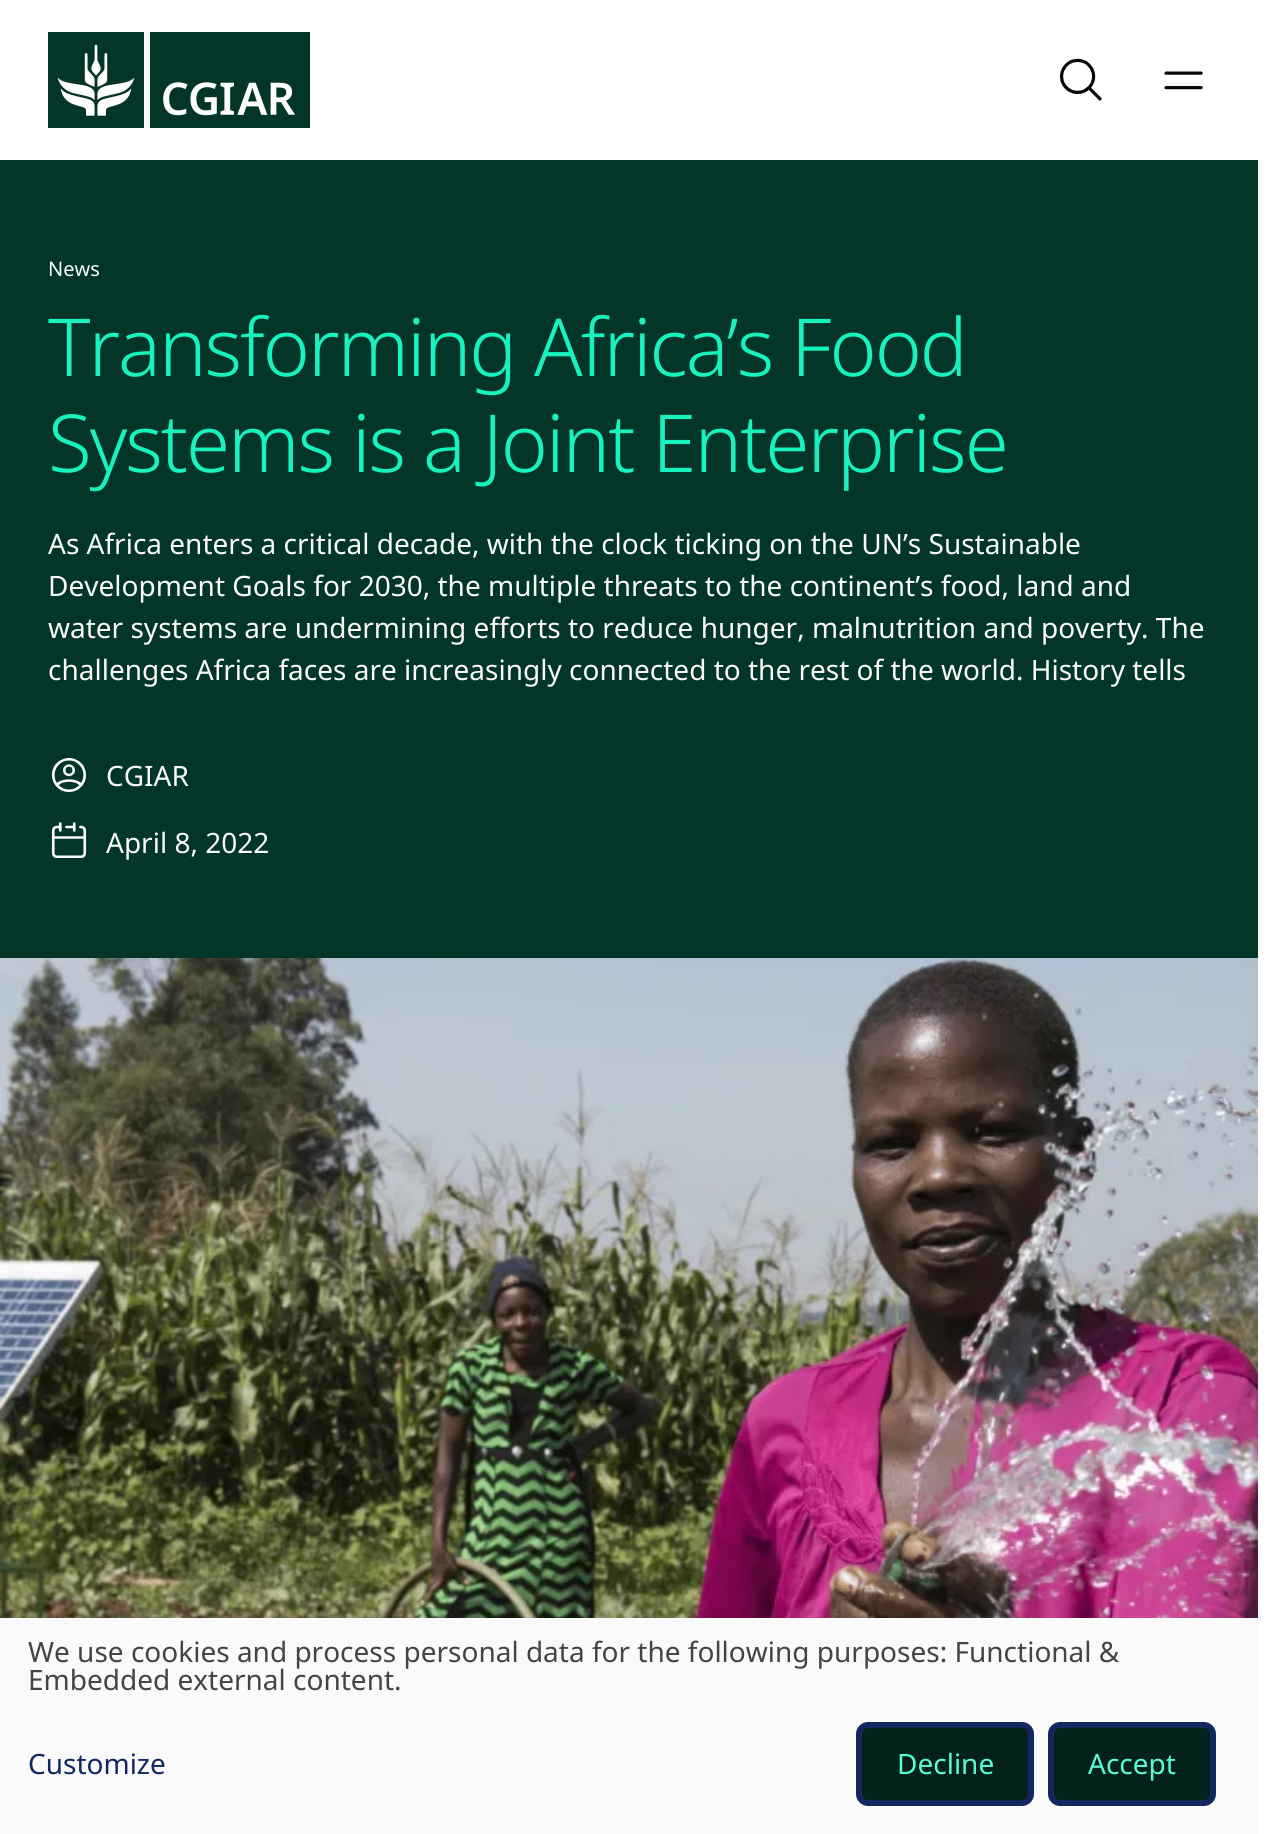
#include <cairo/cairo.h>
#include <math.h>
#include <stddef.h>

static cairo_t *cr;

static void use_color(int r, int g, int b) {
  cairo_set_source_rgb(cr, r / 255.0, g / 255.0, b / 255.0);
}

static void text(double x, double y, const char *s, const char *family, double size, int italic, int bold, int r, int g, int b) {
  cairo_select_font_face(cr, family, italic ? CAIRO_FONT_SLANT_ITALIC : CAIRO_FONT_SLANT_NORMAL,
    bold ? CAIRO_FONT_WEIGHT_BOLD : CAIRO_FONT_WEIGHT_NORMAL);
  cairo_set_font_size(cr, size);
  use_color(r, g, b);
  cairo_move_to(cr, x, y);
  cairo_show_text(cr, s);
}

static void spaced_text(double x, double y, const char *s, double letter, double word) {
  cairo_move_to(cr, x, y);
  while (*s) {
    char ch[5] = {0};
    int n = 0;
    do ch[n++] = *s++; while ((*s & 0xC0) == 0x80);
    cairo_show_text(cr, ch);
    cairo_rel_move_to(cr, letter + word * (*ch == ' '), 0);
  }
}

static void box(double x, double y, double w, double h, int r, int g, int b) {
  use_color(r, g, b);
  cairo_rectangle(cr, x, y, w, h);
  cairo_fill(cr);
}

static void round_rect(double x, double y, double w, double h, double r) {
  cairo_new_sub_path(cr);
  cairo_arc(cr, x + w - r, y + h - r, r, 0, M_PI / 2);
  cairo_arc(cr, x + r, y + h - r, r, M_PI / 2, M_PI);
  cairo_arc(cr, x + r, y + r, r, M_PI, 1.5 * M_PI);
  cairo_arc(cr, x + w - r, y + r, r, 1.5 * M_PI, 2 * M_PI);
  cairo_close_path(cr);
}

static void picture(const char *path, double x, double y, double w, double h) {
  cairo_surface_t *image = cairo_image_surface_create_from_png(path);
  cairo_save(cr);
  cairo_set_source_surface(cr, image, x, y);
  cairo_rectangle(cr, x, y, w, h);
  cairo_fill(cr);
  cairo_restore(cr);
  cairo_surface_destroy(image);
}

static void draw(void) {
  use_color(255, 255, 255);
  cairo_paint(cr);
  picture("img_01.png", 48, 32, 262, 96);
  picture("img_02.png", 1060, 58, 42, 43);
  picture("img_03.png", 1164, 71, 39, 19);
  box(0, 160, 1258, 798, 3, 53, 41);
  picture("img_04.png", 51, 758, 35, 34);
  picture("img_05.png", 51, 822, 36, 36);
  picture("img_06.png", 0, 958, 1258, 660);
  box(0, 1618, 1258, 216, 250, 250, 250);
  use_color(2, 34, 26);
  round_rect(859, 1725, 172, 78, 9);
  cairo_fill_preserve(cr);
  use_color(18, 40, 95);
  cairo_set_line_width(cr, 6);
  cairo_stroke(cr);
  use_color(2, 34, 26);
  round_rect(1051, 1725, 162, 78, 9);
  cairo_fill_preserve(cr);
  use_color(18, 40, 95);
  cairo_stroke(cr);
  text(48, 276, "News", "Noto Sans", 20, 0, 0, 250, 250, 250);
  cairo_select_font_face(cr, "Noto Sans Light", CAIRO_FONT_SLANT_NORMAL, CAIRO_FONT_WEIGHT_NORMAL);
  cairo_set_font_size(cr, 80);
  use_color(24, 242, 190);
  spaced_text(48, 376, "Transforming Africa’s Food", -2, 0);
  spaced_text(48, 472, "Systems is a Joint Enterprise", -2, 0);
  text(48, 554, "As Africa enters a critical decade, with the clock ticking on the UN’s Sustainable", "Noto Sans", 28, 0, 0, 250, 250, 250);
  text(48, 596, "Development Goals for 2030, the multiple threats to the continent’s food, land and", "Noto Sans", 28, 0, 0, 250, 250, 250);
  text(48, 638, "water systems are undermining efforts to reduce hunger, malnutrition and poverty. The", "Noto Sans", 28, 0, 0, 250, 250, 250);
  text(48, 680, "challenges Africa faces are increasingly connected to the rest of the world. History tells", "Noto Sans", 28, 0, 0, 250, 250, 250);
  text(106, 786, "CGIAR", "Noto Sans", 28, 0, 0, 250, 250, 250);
  text(106, 853, "April 8, 2022", "Noto Sans", 28, 0, 0, 250, 250, 250);
  text(28, 1662, "We use cookies and process personal data for the following purposes: Functional &", "Noto Sans", 28, 0, 0, 68, 68, 68);
  text(28, 1690, "Embedded external content.", "Noto Sans", 28, 0, 0, 68, 68, 68);
  text(28, 1774, "Customize", "Noto Sans", 28, 0, 0, 18, 40, 95);
  text(897, 1774, "Decline", "Noto Sans", 28, 0, 0, 88, 251, 212);
  text(1088, 1774, "Accept", "Noto Sans", 28, 0, 0, 88, 251, 212);
}

int main(void) {
  cairo_surface_t *surface = cairo_image_surface_create(CAIRO_FORMAT_RGB24, 1287, 1834);
  cr = cairo_create(surface);
  cairo_font_options_t *options = cairo_font_options_create();
  cairo_font_options_set_hint_metrics(options, CAIRO_HINT_METRICS_OFF);
  cairo_font_options_set_hint_style(options, CAIRO_HINT_STYLE_NONE);
  cairo_set_font_options(cr, options);
  cairo_set_miter_limit(cr, 4);
  draw();
  cairo_surface_write_to_png(surface, "out.png");
  cairo_font_options_destroy(options);
  cairo_destroy(cr);
  cairo_surface_destroy(surface);
  return 0;
}
